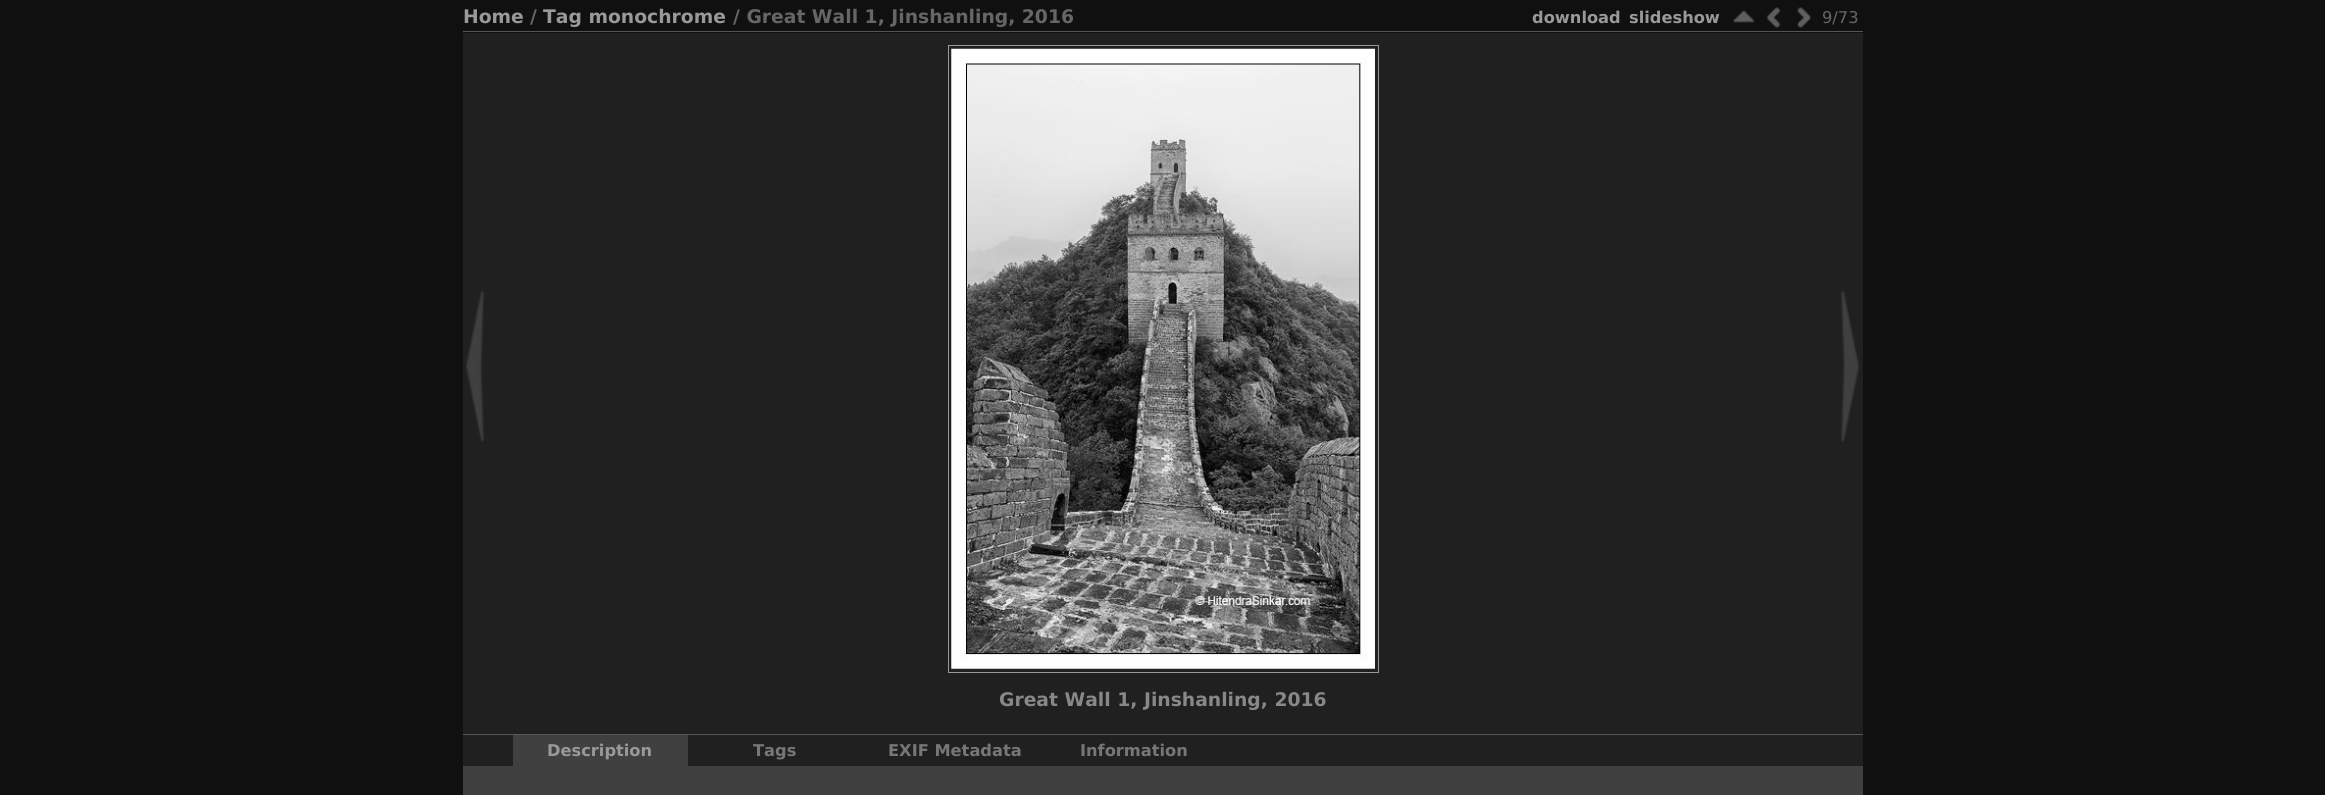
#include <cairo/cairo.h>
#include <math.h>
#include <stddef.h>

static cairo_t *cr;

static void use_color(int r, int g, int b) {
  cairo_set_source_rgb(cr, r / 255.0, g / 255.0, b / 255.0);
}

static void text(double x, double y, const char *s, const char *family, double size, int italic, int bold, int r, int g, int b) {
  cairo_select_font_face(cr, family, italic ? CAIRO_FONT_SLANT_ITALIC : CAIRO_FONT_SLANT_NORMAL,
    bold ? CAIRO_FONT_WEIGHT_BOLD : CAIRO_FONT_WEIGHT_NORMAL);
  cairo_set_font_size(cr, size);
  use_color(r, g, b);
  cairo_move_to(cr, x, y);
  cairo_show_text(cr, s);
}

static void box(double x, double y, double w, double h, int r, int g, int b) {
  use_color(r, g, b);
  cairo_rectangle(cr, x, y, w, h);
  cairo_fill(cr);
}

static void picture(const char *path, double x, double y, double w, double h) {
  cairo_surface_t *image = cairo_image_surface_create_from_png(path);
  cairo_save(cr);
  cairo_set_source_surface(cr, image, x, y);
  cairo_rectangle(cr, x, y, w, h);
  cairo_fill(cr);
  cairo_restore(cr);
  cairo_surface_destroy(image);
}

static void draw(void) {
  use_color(16, 16, 16);
  cairo_paint(cr);
  picture("img_01.png", 1733, 10, 22, 13);
  picture("img_02.png", 1766, 7, 15, 21);
  picture("img_03.png", 1797, 7, 14, 21);
  box(463, 33, 1400, 733, 32, 32, 32);
  box(463, 31, 1400, 1, 85, 85, 85);
  picture("img_04.png", 466, 291, 18, 151);
  cairo_rectangle(cr, 948.5, 45.5, 430, 627);
  use_color(153, 153, 153);
  cairo_set_line_width(cr, 1);
  cairo_stroke(cr);
  picture("img_05.png", 951, 48, 424, 621);
  picture("img_06.png", 1841, 291, 18, 151);
  box(463, 734, 1400, 1, 85, 85, 85);
  box(513, 735, 175, 31, 64, 64, 64);
  box(463, 766, 1400, 29, 64, 64, 64);
  text(463, 23, "Home", "DejaVu Sans", 18.75, 0, 1, 153, 153, 153);
  text(530, 23, "/", "DejaVu Sans", 18.75, 0, 1, 102, 102, 102);
  text(543, 23, "Tag monochrome", "DejaVu Sans", 18.75, 0, 1, 153, 153, 153);
  text(733, 23, "/ Great Wall 1, Jinshanling, 2016", "DejaVu Sans", 18.75, 0, 1, 102, 102, 102);
  text(1532, 23, "download", "DejaVu Sans", 16.25, 0, 1, 153, 153, 153);
  text(1629, 23, "slideshow", "DejaVu Sans", 16.25, 0, 1, 153, 153, 153);
  text(1822, 23, "9/73", "DejaVu Sans", 16.25, 0, 0, 102, 102, 102);
  text(999, 706, "Great Wall 1, Jinshanling, 2016", "DejaVu Sans", 18.75, 0, 1, 136, 136, 136);
  text(547, 756, "Description", "DejaVu Sans", 16.25, 0, 1, 153, 153, 153);
  text(753, 756, "Tags", "DejaVu Sans", 16.25, 0, 1, 119, 119, 119);
  text(888, 756, "EXIF Metadata", "DejaVu Sans", 16.25, 0, 1, 119, 119, 119);
  text(1080, 756, "Information", "DejaVu Sans", 16.25, 0, 1, 119, 119, 119);
}

int main(void) {
  cairo_surface_t *surface = cairo_image_surface_create(CAIRO_FORMAT_RGB24, 2325, 795);
  cr = cairo_create(surface);
  cairo_font_options_t *options = cairo_font_options_create();
  cairo_font_options_set_hint_metrics(options, CAIRO_HINT_METRICS_OFF);
  cairo_font_options_set_hint_style(options, CAIRO_HINT_STYLE_NONE);
  cairo_set_font_options(cr, options);
  cairo_set_miter_limit(cr, 4);
  draw();
  cairo_surface_write_to_png(surface, "out.png");
  cairo_font_options_destroy(options);
  cairo_destroy(cr);
  cairo_surface_destroy(surface);
  return 0;
}
